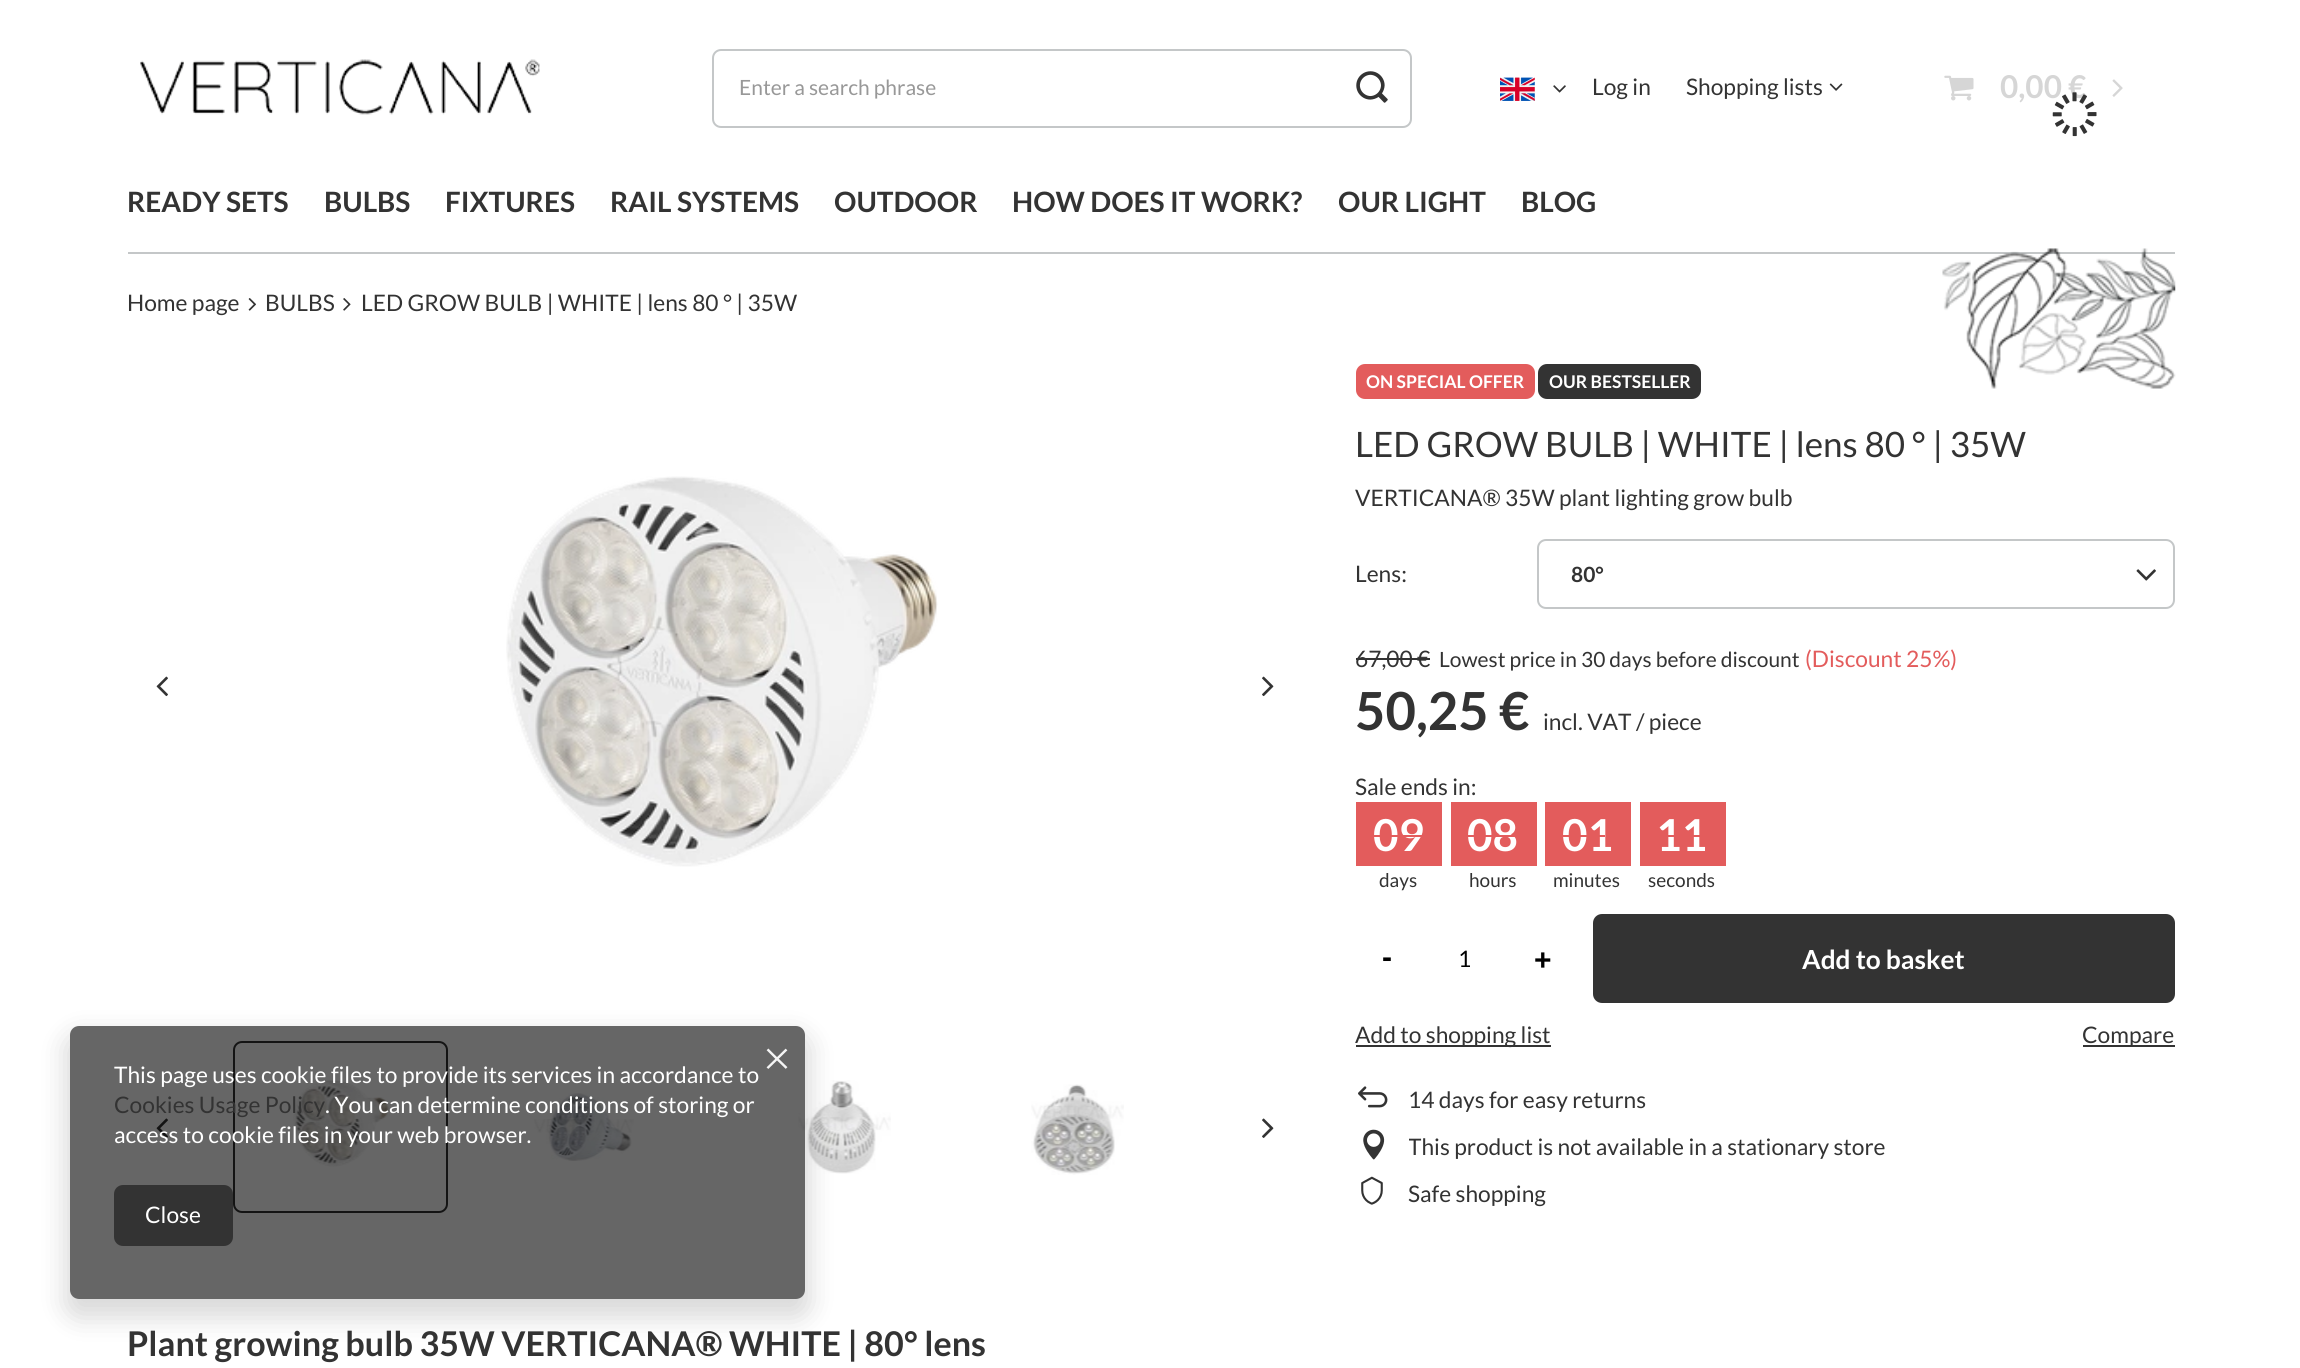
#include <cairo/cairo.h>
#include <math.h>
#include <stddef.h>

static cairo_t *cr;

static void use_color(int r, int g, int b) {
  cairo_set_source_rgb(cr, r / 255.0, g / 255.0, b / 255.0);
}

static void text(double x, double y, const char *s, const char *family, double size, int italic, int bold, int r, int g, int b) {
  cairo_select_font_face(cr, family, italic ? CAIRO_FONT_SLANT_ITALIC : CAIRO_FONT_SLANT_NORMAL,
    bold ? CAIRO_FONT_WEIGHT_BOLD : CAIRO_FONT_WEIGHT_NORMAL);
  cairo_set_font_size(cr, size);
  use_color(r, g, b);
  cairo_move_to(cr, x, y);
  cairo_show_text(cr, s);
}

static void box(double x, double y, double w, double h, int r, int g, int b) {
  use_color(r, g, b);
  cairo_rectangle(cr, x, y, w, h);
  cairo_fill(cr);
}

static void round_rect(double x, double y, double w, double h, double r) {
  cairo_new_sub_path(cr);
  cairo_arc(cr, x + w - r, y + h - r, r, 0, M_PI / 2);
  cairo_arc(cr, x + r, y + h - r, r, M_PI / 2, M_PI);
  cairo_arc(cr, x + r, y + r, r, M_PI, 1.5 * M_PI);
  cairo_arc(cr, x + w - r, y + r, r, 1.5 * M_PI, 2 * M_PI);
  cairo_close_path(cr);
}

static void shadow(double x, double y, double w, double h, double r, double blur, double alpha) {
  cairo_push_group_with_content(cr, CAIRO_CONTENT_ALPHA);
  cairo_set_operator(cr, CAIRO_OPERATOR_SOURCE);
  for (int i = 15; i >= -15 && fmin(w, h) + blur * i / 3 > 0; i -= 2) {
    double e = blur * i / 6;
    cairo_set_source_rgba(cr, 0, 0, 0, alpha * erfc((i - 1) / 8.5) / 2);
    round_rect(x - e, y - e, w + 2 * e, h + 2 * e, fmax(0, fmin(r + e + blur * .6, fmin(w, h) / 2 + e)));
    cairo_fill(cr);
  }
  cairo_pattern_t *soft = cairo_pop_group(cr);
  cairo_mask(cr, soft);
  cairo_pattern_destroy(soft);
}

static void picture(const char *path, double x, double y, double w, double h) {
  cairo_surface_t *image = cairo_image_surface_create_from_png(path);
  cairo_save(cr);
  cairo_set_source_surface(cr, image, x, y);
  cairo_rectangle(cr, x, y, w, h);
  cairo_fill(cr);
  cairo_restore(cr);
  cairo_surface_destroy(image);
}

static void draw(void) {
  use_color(255, 255, 255);
  cairo_paint(cr);
  picture("img_01.png", 140, 59, 400, 56);
  round_rect(713, 50, 698, 77, 8);
  use_color(196, 199, 200);
  cairo_stroke(cr);
  picture("img_02.png", 1356, 71, 32, 32);
  picture("img_03.png", 1500, 77, 35, 24);
  picture("img_04.png", 1553, 85, 13, 8);
  picture("img_05.png", 1829, 83, 14, 8);
  picture("img_06.png", 1944, 75, 30, 26);
  picture("img_07.png", 2112, 79, 11, 18);
  box(128, 252, 2047, 2, 196, 199, 200);
  picture("img_09.png", 248, 298, 8, 13);
  picture("img_10.png", 343, 298, 8, 13);
  picture("img_11.png", 1942, 248, 234, 141);
  use_color(227, 92, 92);
  round_rect(1356, 364, 179, 35, 9);
  cairo_fill(cr);
  use_color(51, 51, 51);
  round_rect(1538, 364, 163, 35, 9);
  cairo_fill(cr);
  picture("img_12.png", 156, 676, 12, 21);
  picture("img_13.png", 506, 476, 432, 391);
  picture("img_14.png", 1262, 676, 12, 21);
  picture("img_15.png", 156, 1118, 12, 20);
  round_rect(234, 1042, 213, 170, 8);
  cairo_stroke(cr);
  picture("img_16.png", 293, 1080, 97, 87);
  picture("img_17.png", 534, 1093, 100, 68);
  picture("img_18.png", 798, 1080, 93, 94);
  picture("img_19.png", 1031, 1084, 93, 91);
  picture("img_20.png", 1262, 1118, 12, 20);
  round_rect(1538, 540, 636, 68, 8);
  use_color(196, 199, 200);
  cairo_stroke(cr);
  picture("img_21.png", 2136, 569, 20, 12);
  box(1356, 658, 74, 2, 51, 51, 51);
  box(1356, 802, 86, 64, 227, 92, 92);
  box(1451, 802, 86, 64, 227, 92, 92);
  box(1545, 802, 86, 64, 227, 92, 92);
  box(1640, 802, 86, 64, 227, 92, 92);
  use_color(51, 51, 51);
  round_rect(1594, 915, 580, 87, 8);
  cairo_fill_preserve(cr);
  cairo_stroke(cr);
  box(1356, 1045, 195, 2, 51, 51, 51);
  box(2083, 1045, 92, 2, 51, 51, 51);
  picture("img_22.png", 1358, 1086, 30, 22);
  picture("img_23.png", 1363, 1129, 22, 31);
  picture("img_24.png", 1361, 1176, 22, 29);
  cairo_save(cr);
  cairo_set_fill_rule(cr, CAIRO_FILL_RULE_EVEN_ODD);
  cairo_new_path(cr);
  cairo_move_to(cr, 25, 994);
  cairo_line_to(cr, 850, 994);
  cairo_line_to(cr, 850, 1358);
  cairo_line_to(cr, 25, 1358);
  cairo_close_path(cr);
  cairo_move_to(cr, 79, 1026);
  cairo_line_to(cr, 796, 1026);
  cairo_curve_to(cr, 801, 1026, 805, 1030, 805, 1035);
  cairo_line_to(cr, 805, 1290);
  cairo_curve_to(cr, 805, 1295, 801, 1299, 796, 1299);
  cairo_line_to(cr, 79, 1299);
  cairo_curve_to(cr, 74, 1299, 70, 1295, 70, 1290);
  cairo_line_to(cr, 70, 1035);
  cairo_curve_to(cr, 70, 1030, 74, 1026, 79, 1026);
  cairo_close_path(cr);
  cairo_clip(cr);
  use_color(0, 0, 0);
  shadow(65, 1034, 745, 284, 14, 13, 0.15);
  cairo_restore(cr);
  cairo_set_source_rgba(cr, 0, 0, 0, 0.6);
  round_rect(70, 1026, 735, 273, 9);
  cairo_fill(cr);
  picture("img_25.png", 766, 1048, 22, 21);
  use_color(51, 51, 51);
  round_rect(114, 1185, 119, 61, 9);
  cairo_fill(cr);
  text(739, 95, "Enter a search phrase", "Lato", 21, 0, 0, 152, 152, 152);
  text(1592, 95, "Log in", "Lato", 22.75, 0, 0, 51, 51, 51);
  text(1686, 95, "Shopping lists", "Lato", 22.75, 0, 0, 51, 51, 51);
  text(2000, 98, "0,00 €", "Lato", 31.5, 0, 1, 214, 214, 214);
  picture("img_08.png", 2052, 92, 45, 45);
  text(127, 212, "READY SETS", "Lato", 28, 0, 1, 51, 51, 51);
  text(324, 212, "BULBS", "Lato", 28, 0, 1, 51, 51, 51);
  text(445, 212, "FIXTURES", "Lato", 28, 0, 1, 51, 51, 51);
  text(610, 212, "RAIL SYSTEMS", "Lato", 28, 0, 1, 51, 51, 51);
  text(834, 212, "OUTDOOR", "Lato", 28, 0, 1, 51, 51, 51);
  text(1012, 212, "HOW DOES IT WORK?", "Lato", 28, 0, 1, 51, 51, 51);
  text(1338, 212, "OUR LIGHT", "Lato", 28, 0, 1, 51, 51, 51);
  text(1521, 212, "BLOG", "Lato", 28, 0, 1, 51, 51, 51);
  text(127, 311, "Home page", "Lato", 22.75, 0, 0, 51, 51, 51);
  text(265, 311, "BULBS", "Lato", 22.75, 0, 0, 51, 51, 51);
  text(361, 311, "LED GROW BULB | WHITE | lens 80 ° | 35W", "Lato", 22.75, 0, 0, 51, 51, 51);
  text(1366, 388, "ON SPECIAL OFFER", "Lato", 17.5, 0, 1, 255, 255, 255);
  text(1549, 388, "OUR BESTSELLER", "Lato", 17.5, 0, 1, 255, 255, 255);
  text(1355, 457, "LED GROW BULB | WHITE | lens 80 ° | 35W", "Lato", 35, 0, 0, 51, 51, 51);
  text(1355, 506, "VERTICANA® 35W plant lighting grow bulb", "Lato", 22.75, 0, 0, 51, 51, 51);
  text(1355, 582, "Lens:", "Lato", 22.75, 0, 0, 51, 51, 51);
  text(1571, 582, "80°", "Lato", 21, 0, 1, 51, 51, 51);
  text(1355, 667, "67,00 €", "Lato", 22.75, 0, 0, 51, 51, 51);
  text(1439, 667, "Lowest price in 30 days before discount", "Lato", 21, 0, 0, 51, 51, 51);
  text(1805, 667, "(Discount 25%)", "Lato", 22.75, 0, 0, 227, 92, 92);
  text(1355, 730, "50,25 €", "Lato", 52.5, 0, 1, 51, 51, 51);
  text(1543, 730, "incl. VAT / piece", "Lato", 22.75, 0, 0, 51, 51, 51);
  text(1355, 795, "Sale ends in:", "Lato", 22.75, 0, 0, 51, 51, 51);
  text(1373, 851, "09", "Lato", 44, 0, 1, 255, 255, 255);
  box(1374, 835, 48, 2, 227, 92, 92);
  text(1379, 887, "days", "Lato", 19, 0, 0, 51, 51, 51);
  text(1467, 851, "08", "Lato", 44, 0, 1, 255, 255, 255);
  box(1468, 835, 47, 2, 227, 92, 92);
  text(1469, 887, "hours", "Lato", 19, 0, 0, 51, 51, 51);
  text(1562, 851, "01", "Lato", 44, 0, 1, 255, 255, 255);
  box(1563, 835, 42, 2, 227, 92, 92);
  text(1553, 887, "minutes", "Lato", 19, 0, 0, 51, 51, 51);
  text(1656, 851, "11", "Lato", 44, 0, 1, 255, 255, 255);
  box(1668, 835, 32, 2, 227, 92, 92);
  text(1648, 887, "seconds", "Lato", 19, 0, 0, 51, 51, 51);
  text(1382, 967, "-", "Liberation Sans", 30, 0, 1, 0, 0, 0);
  text(1458, 967, "1", "Lato", 22.75, 0, 0, 0, 0, 0);
  text(1534, 970, "+", "Liberation Sans", 30, 0, 1, 0, 0, 0);
  text(1802, 969, "Add to basket", "Lato", 26.25, 0, 1, 255, 255, 255);
  text(1355, 1043, "Add to shopping list", "Lato", 22.75, 0, 0, 51, 51, 51);
  text(2082, 1043, "Compare", "Lato", 22.75, 0, 0, 51, 51, 51);
  text(1408, 1108, "14 days for easy returns", "Lato", 22.75, 0, 0, 51, 51, 51);
  cairo_save(cr);
  cairo_rectangle(cr, 1409, 1132, 766, 30);
  cairo_clip(cr);
  text(1408, 1155, "This product is not available in a stationary store", "Lato", 22.75, 0, 0, 51, 51, 51);
  cairo_restore(cr);
  text(1408, 1202, "Safe shopping", "Lato", 22.75, 0, 0, 51, 51, 51);
  text(127, 1356, "Plant growing bulb 35W VERTICANA® WHITE | 80° lens", "Lato", 34.1, 0, 1, 51, 51, 51);
  text(114, 1083, "This page uses cookie files to provide its services in accordance to", "Lato", 22.75, 0, 0, 255, 255, 255);
  text(114, 1113, "Cookies Usage Policy", "Lato", 22.75, 0, 0, 51, 51, 51);
  text(325, 1113, ". You can determine conditions of storing or", "Lato", 22.75, 0, 0, 255, 255, 255);
  text(114, 1143, "access to cookie files in your web browser.", "Lato", 22.75, 0, 0, 255, 255, 255);
  text(145, 1223, "Close", "Lato", 22.75, 0, 0, 255, 255, 255);
}

int main(void) {
  cairo_surface_t *surface = cairo_image_surface_create(CAIRO_FORMAT_RGB24, 2300, 1368);
  cr = cairo_create(surface);
  cairo_font_options_t *options = cairo_font_options_create();
  cairo_font_options_set_hint_metrics(options, CAIRO_HINT_METRICS_OFF);
  cairo_font_options_set_hint_style(options, CAIRO_HINT_STYLE_NONE);
  cairo_set_font_options(cr, options);
  cairo_set_miter_limit(cr, 4);
  draw();
  cairo_surface_write_to_png(surface, "out.png");
  cairo_font_options_destroy(options);
  cairo_destroy(cr);
  cairo_surface_destroy(surface);
  return 0;
}
